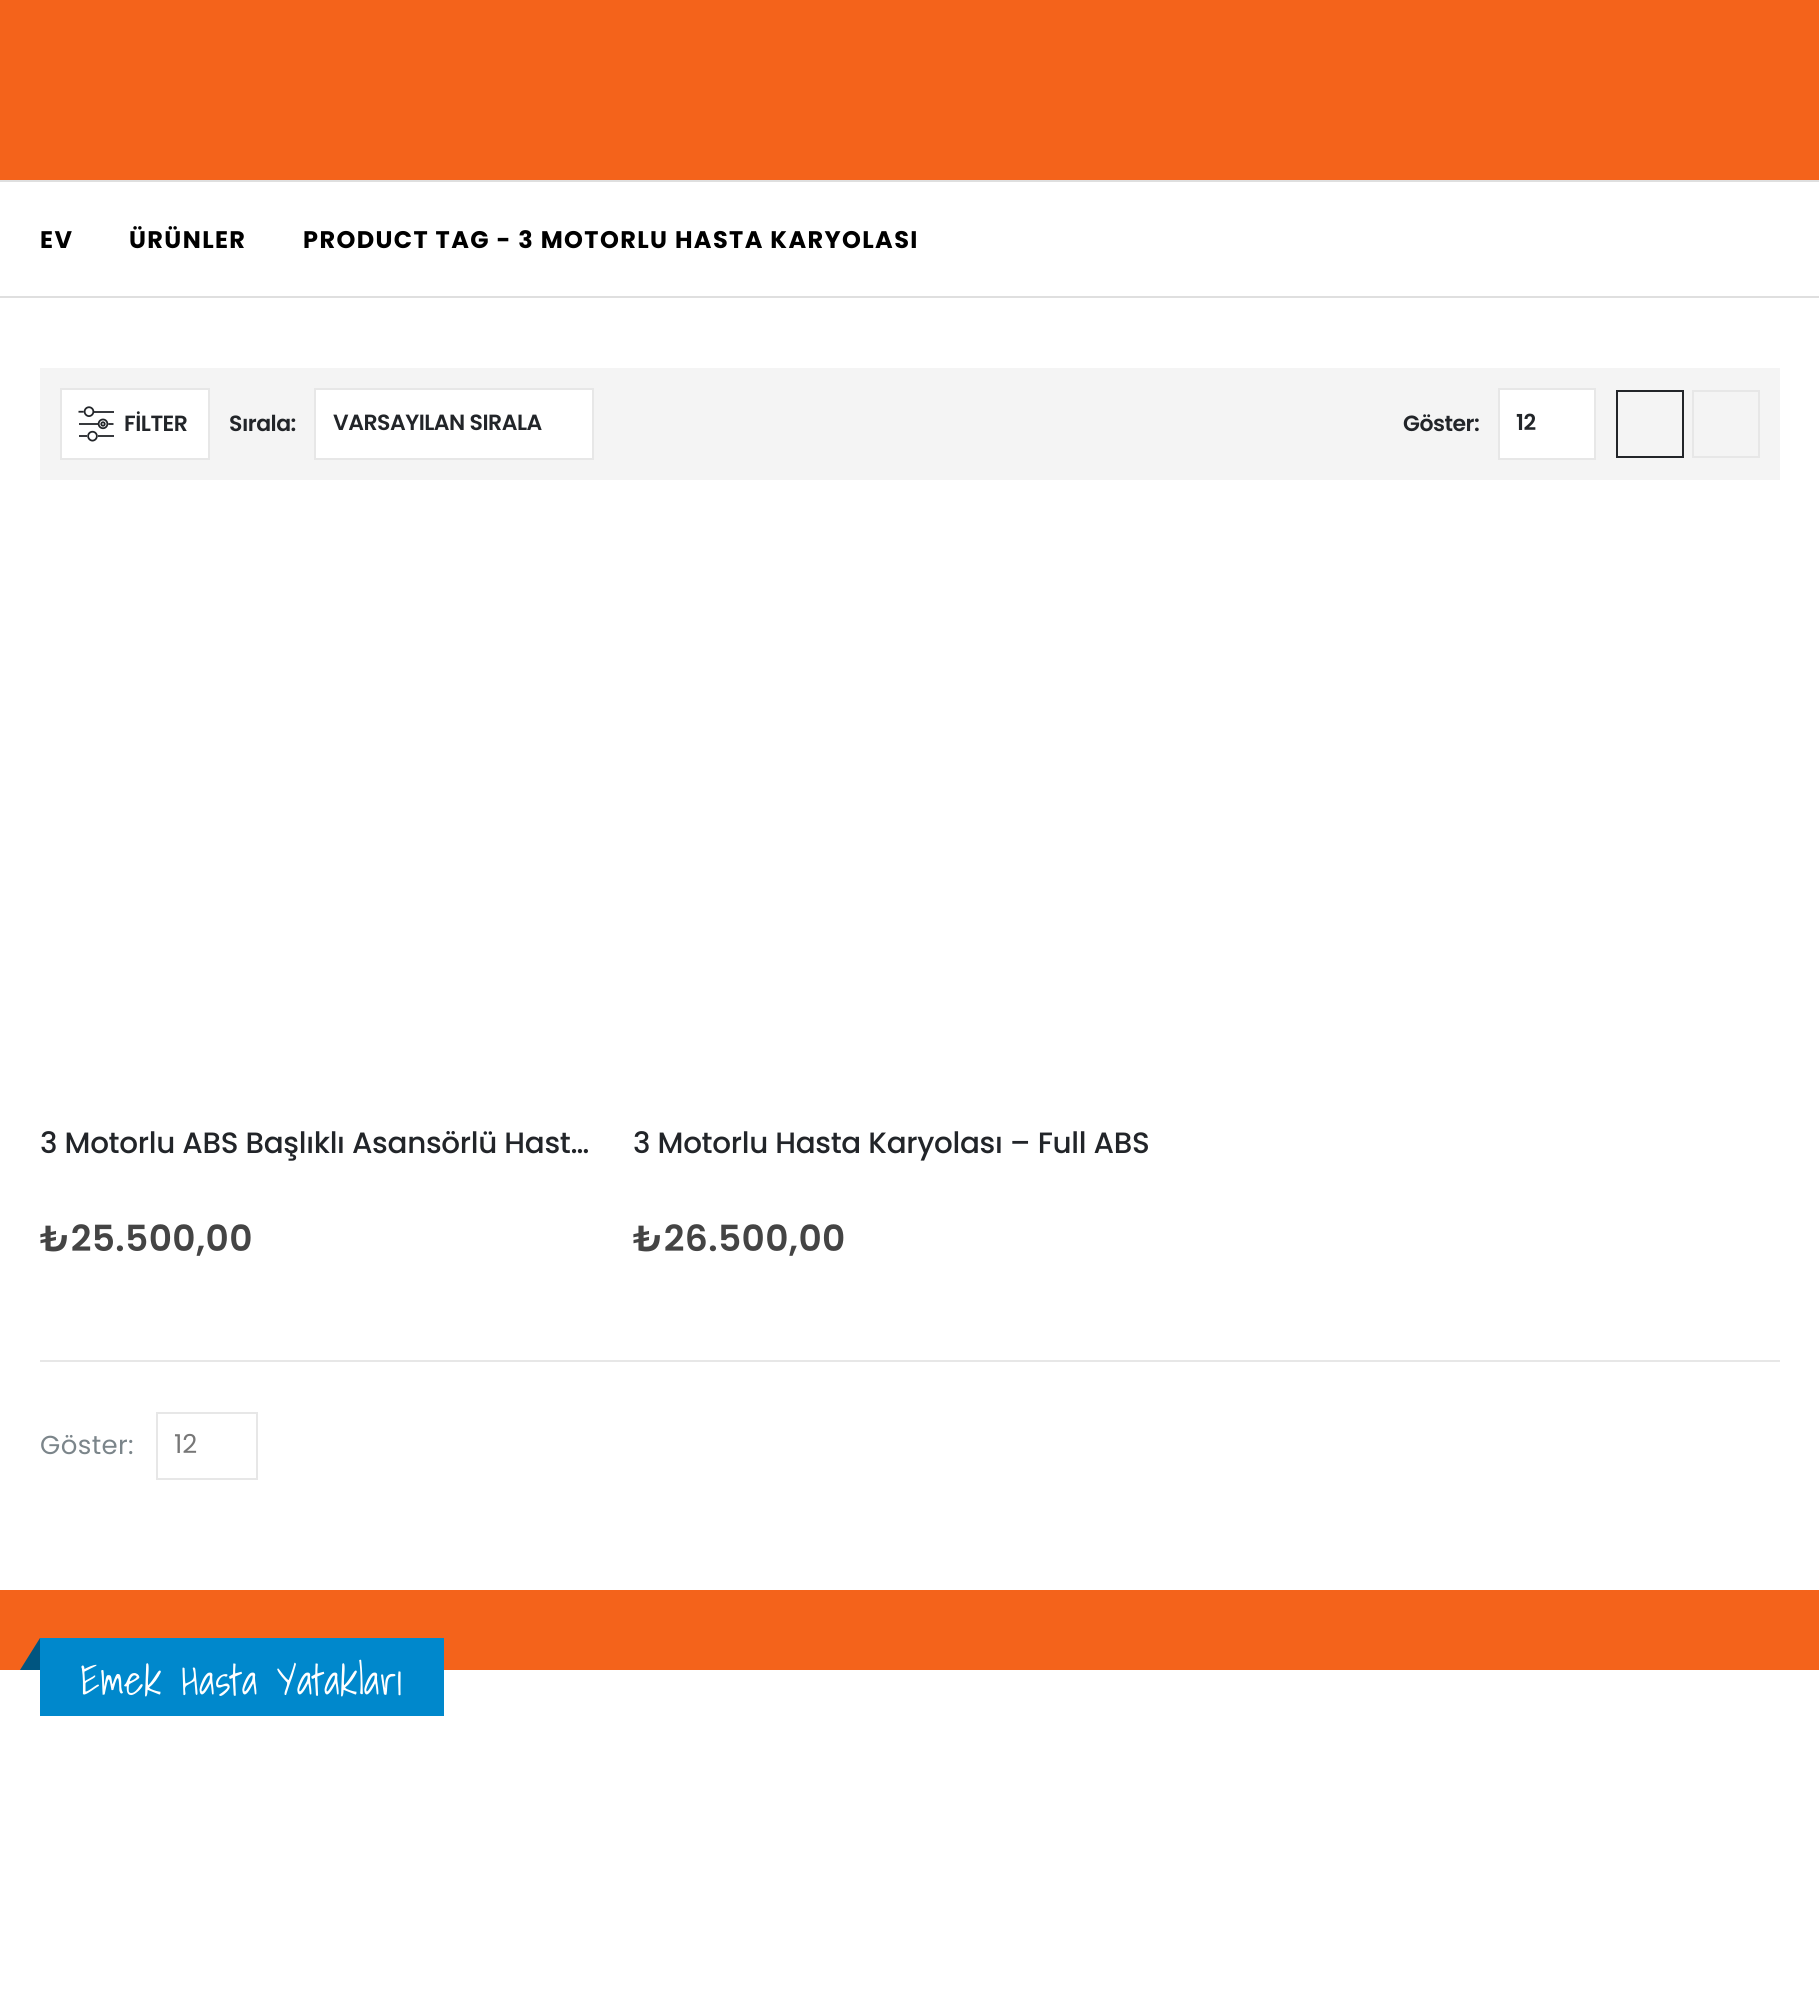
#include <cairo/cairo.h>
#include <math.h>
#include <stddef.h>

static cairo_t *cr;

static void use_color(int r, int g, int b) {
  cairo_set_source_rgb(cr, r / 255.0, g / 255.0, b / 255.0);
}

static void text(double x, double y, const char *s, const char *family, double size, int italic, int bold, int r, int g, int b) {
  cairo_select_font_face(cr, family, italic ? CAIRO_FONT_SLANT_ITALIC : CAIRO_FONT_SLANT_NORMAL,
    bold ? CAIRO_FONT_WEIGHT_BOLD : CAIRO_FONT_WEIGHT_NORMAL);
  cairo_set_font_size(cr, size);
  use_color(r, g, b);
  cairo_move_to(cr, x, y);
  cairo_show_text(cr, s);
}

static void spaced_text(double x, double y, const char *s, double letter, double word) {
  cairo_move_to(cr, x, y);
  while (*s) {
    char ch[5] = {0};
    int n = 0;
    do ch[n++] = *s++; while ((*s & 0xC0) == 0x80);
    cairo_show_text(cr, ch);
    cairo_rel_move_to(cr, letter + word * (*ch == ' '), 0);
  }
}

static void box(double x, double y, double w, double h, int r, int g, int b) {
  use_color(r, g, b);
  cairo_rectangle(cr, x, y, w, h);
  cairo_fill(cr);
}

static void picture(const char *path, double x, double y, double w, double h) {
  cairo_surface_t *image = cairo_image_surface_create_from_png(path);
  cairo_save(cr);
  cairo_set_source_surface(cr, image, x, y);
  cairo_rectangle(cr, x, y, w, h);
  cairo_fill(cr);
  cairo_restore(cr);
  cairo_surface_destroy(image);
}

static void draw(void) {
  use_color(255, 255, 255);
  cairo_paint(cr);
  box(0, 0, 1819, 180, 244, 99, 27);
  box(0, 180, 1819, 2, 223, 223, 223);
  box(0, 296, 1819, 2, 223, 223, 223);
  box(40, 368, 1740, 112, 244, 244, 244);
  use_color(255, 255, 255);
  cairo_rectangle(cr, 61, 389, 148, 70);
  cairo_fill_preserve(cr);
  use_color(231, 231, 231);
  cairo_stroke(cr);
  picture("img_01.png", 78, 406, 36, 36);
  use_color(255, 255, 255);
  cairo_rectangle(cr, 315, 389, 278, 70);
  cairo_fill_preserve(cr);
  use_color(231, 231, 231);
  cairo_stroke(cr);
  use_color(255, 255, 255);
  cairo_rectangle(cr, 1499, 389, 96, 70);
  cairo_fill_preserve(cr);
  use_color(231, 231, 231);
  cairo_stroke(cr);
  cairo_rectangle(cr, 1617, 391, 66, 66);
  use_color(34, 37, 41);
  cairo_stroke(cr);
  cairo_rectangle(cr, 1693, 391, 66, 66);
  use_color(231, 231, 231);
  cairo_stroke(cr);
  box(40, 1360, 1740, 2, 231, 231, 231);
  cairo_rectangle(cr, 157, 1413, 100, 66);
  cairo_stroke(cr);
  box(0, 1590, 1819, 80, 244, 99, 27);
  box(40, 1638, 404, 78, 0, 136, 204);
  use_color(0, 85, 128);
  cairo_new_path(cr);
  cairo_move_to(cr, 40, 1638);
  cairo_line_to(cr, 40, 1670);
  cairo_line_to(cr, 20, 1670);
  cairo_close_path(cr);
  cairo_fill(cr);
  cairo_select_font_face(cr, "Poppins", CAIRO_FONT_SLANT_NORMAL, CAIRO_FONT_WEIGHT_BOLD);
  cairo_set_font_size(cr, 24);
  use_color(0, 0, 0);
  spaced_text(40, 248, "EV", 1.4, 0);
  spaced_text(129, 248, "ÜRÜNLER", 1.4, 0);
  spaced_text(303, 248, "PRODUCT TAG - 3 MOTORLU HASTA KARYOLASI", 1.4, 0);
  cairo_select_font_face(cr, "Poppins SemiBold", CAIRO_FONT_SLANT_NORMAL, CAIRO_FONT_WEIGHT_NORMAL);
  cairo_set_font_size(cr, 22);
  use_color(34, 37, 41);
  spaced_text(124, 431, "FİLTER", -0.5, 0);
  spaced_text(229, 431, "Sırala:", -0.5, 0);
  spaced_text(333, 430, "VARSAYILAN SIRALA", -0.5, 0);
  spaced_text(1403, 431, "Göster:", -0.5, 0);
  spaced_text(1516, 430, "12", -0.5, 0);
  cairo_select_font_face(cr, "Poppins Medium", CAIRO_FONT_SLANT_NORMAL, CAIRO_FONT_WEIGHT_NORMAL);
  cairo_set_font_size(cr, 29.4);
  spaced_text(40, 1153, "3 Motorlu ABS Başlıklı Asansörlü Hast…", -0.3, 0);
  cairo_select_font_face(cr, "Poppins SemiBold", CAIRO_FONT_SLANT_NORMAL, CAIRO_FONT_WEIGHT_NORMAL);
  cairo_set_font_size(cr, 36);
  use_color(68, 68, 68);
  spaced_text(40, 1251, "₺25.500,00", 0.4, 0);
  cairo_select_font_face(cr, "Poppins Medium", CAIRO_FONT_SLANT_NORMAL, CAIRO_FONT_WEIGHT_NORMAL);
  cairo_set_font_size(cr, 29.4);
  use_color(34, 37, 41);
  spaced_text(633, 1153, "3 Motorlu Hasta Karyolası – Full ABS", -0.3, 0);
  cairo_select_font_face(cr, "Poppins SemiBold", CAIRO_FONT_SLANT_NORMAL, CAIRO_FONT_WEIGHT_NORMAL);
  cairo_set_font_size(cr, 36);
  use_color(68, 68, 68);
  spaced_text(633, 1251, "₺26.500,00", 0.4, 0);
  cairo_select_font_face(cr, "Poppins", CAIRO_FONT_SLANT_NORMAL, CAIRO_FONT_WEIGHT_NORMAL);
  cairo_set_font_size(cr, 26);
  use_color(123, 133, 138);
  spaced_text(40, 1454, "Göster:", 0.4, 0);
  text(174, 1453, "12", "Poppins", 26, 0, 0, 119, 119, 119);
  cairo_select_font_face(cr, "Shadows Into Light", CAIRO_FONT_SLANT_NORMAL, CAIRO_FONT_WEIGHT_NORMAL);
  cairo_set_font_size(cr, 41.5);
  use_color(255, 255, 255);
  spaced_text(80, 1695, "Emek Hasta Yatakları", 0.4, 0);
}

int main(void) {
  cairo_surface_t *surface = cairo_image_surface_create(CAIRO_FORMAT_RGB24, 1819, 1991);
  cr = cairo_create(surface);
  cairo_font_options_t *options = cairo_font_options_create();
  cairo_font_options_set_hint_metrics(options, CAIRO_HINT_METRICS_OFF);
  cairo_font_options_set_hint_style(options, CAIRO_HINT_STYLE_NONE);
  cairo_set_font_options(cr, options);
  cairo_set_miter_limit(cr, 4);
  draw();
  cairo_surface_write_to_png(surface, "out.png");
  cairo_font_options_destroy(options);
  cairo_destroy(cr);
  cairo_surface_destroy(surface);
  return 0;
}
